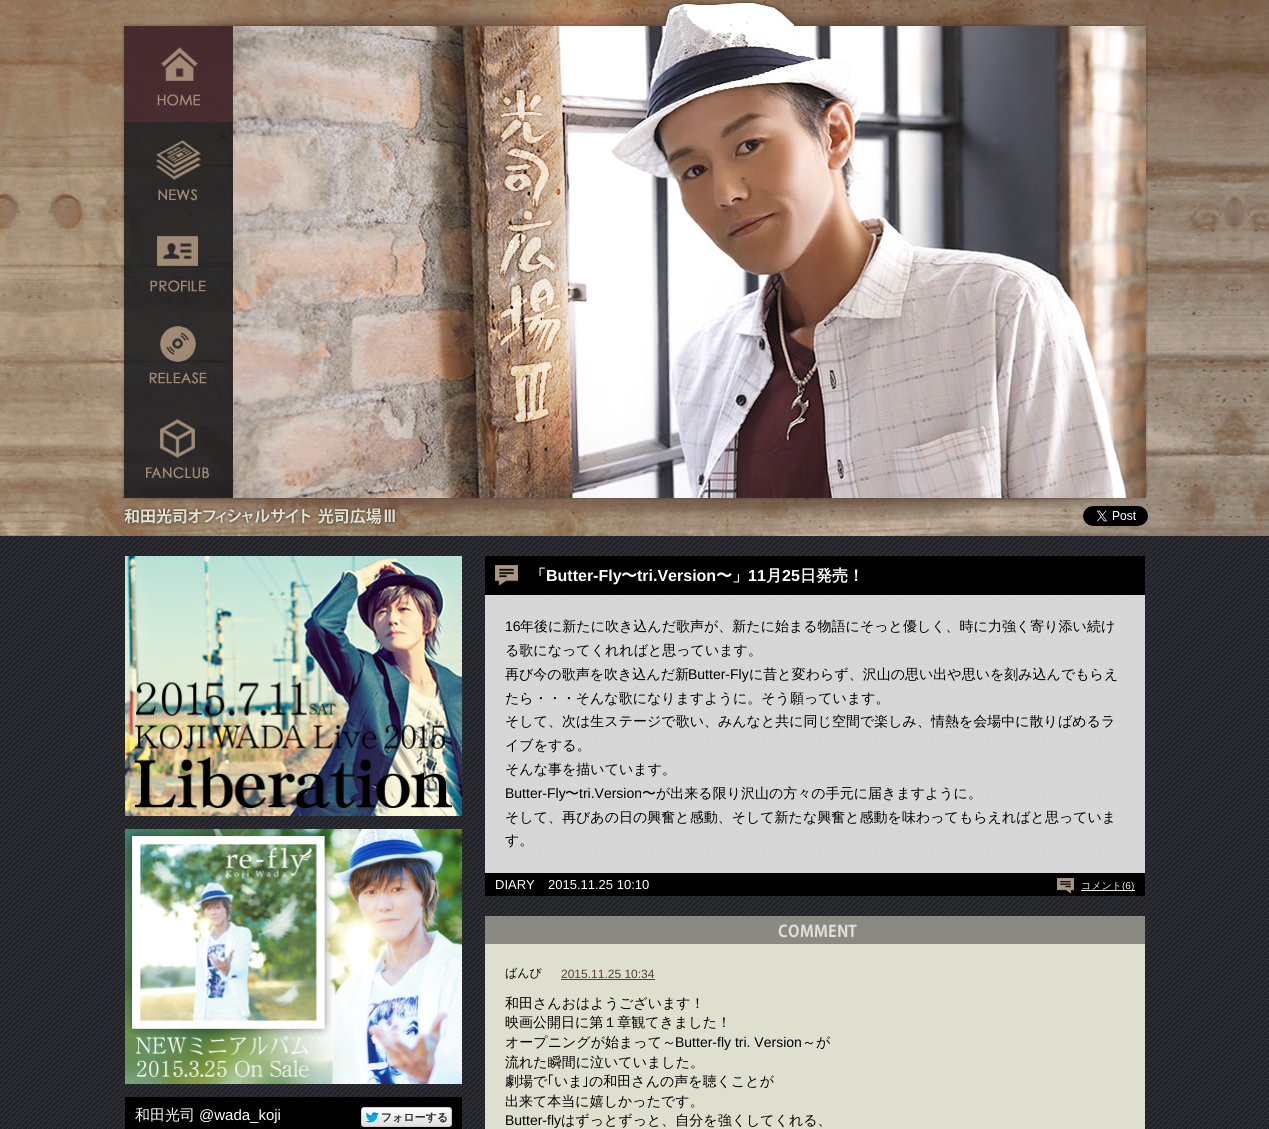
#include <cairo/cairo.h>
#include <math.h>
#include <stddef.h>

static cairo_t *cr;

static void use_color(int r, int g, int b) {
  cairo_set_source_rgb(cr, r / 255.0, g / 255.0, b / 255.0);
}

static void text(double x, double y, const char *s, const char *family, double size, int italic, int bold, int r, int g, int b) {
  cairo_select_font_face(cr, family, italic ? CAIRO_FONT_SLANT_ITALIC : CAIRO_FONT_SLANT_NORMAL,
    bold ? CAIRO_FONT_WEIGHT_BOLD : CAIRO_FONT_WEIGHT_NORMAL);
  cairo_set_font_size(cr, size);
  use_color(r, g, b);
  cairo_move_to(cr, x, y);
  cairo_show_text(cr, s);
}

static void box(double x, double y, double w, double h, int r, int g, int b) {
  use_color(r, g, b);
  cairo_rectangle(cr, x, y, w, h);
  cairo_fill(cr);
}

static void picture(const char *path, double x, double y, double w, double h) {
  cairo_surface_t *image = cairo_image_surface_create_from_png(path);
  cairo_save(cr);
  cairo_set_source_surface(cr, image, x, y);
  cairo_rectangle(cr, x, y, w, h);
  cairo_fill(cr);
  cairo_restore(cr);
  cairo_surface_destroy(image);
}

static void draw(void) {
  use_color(255, 255, 255);
  cairo_paint(cr);
  picture("img_01.png", 0, 0, 1269, 536);
  picture("img_02.png", 122, 0, 1026, 536);
  picture("img_03.png", 122, 506, 276, 20);
  picture("img_04.png", 1083, 506, 65, 20);
  picture("img_05.png", 0, 536, 1269, 593);
  picture("img_06.png", 125, 556, 337, 260);
  picture("img_07.png", 125, 829, 337, 255);
  box(125, 1097, 337, 32, 0, 0, 0);
  picture("img_08.png", 361, 1107, 91, 20);
  box(485, 556, 660, 39, 0, 0, 0);
  picture("img_09.png", 495, 565, 23, 21);
  picture("img_10.png", 485, 595, 660, 278);
  box(485, 873, 660, 23, 0, 0, 0);
  picture("img_11.png", 1057, 878, 17, 16);
  box(1081, 890, 54, 1, 240, 240, 225);
  picture("img_12.png", 485, 916, 660, 28);
  box(485, 944, 660, 185, 223, 223, 207);
  box(561, 979, 94, 1, 89, 63, 43);
  text(135, 1120, "和田光司", "WenQuanYi Zen Hei Medium", 15, 0, 0, 255, 255, 255);
  text(199, 1120, "@wada_koji", "Liberation Sans", 15, 0, 0, 255, 255, 255);
  text(530, 581, "「", "WenQuanYi Zen Hei", 16, 0, 1, 255, 255, 255);
  text(546, 581, "Butter-Fly", "Liberation Sans", 16, 0, 1, 255, 255, 255);
  text(621, 581, "〜", "WenQuanYi Zen Hei", 16, 0, 1, 255, 255, 255);
  text(637, 581, "tri.Version", "Liberation Sans", 16, 0, 1, 255, 255, 255);
  text(716, 581, "〜」", "WenQuanYi Zen Hei", 16, 0, 1, 255, 255, 255);
  text(748, 581, "11", "Liberation Sans", 16, 0, 1, 255, 255, 255);
  text(766, 581, "月", "WenQuanYi Zen Hei", 16, 0, 1, 255, 255, 255);
  text(782, 581, "25", "Liberation Sans", 16, 0, 1, 255, 255, 255);
  text(800, 581, "日発売！", "WenQuanYi Zen Hei", 16, 0, 1, 255, 255, 255);
  text(505, 631, "16", "Liberation Sans", 14, 0, 0, 0, 0, 0);
  text(520, 631, "年後に新たに吹き込んだ歌声が、新たに始まる物語にそっと優しく、時に力強く寄り添い続け", "WenQuanYi Zen Hei Medium", 14, 0, 0, 0, 0, 0);
  text(505, 655, "る歌になってくれればと思っています。", "WenQuanYi Zen Hei Medium", 14, 0, 0, 0, 0, 0);
  text(505, 679, "再び今の歌声を吹き込んだ新", "WenQuanYi Zen Hei Medium", 14, 0, 0, 0, 0, 0);
  text(688, 679, "Butter-Fly", "Liberation Sans", 14, 0, 0, 0, 0, 0);
  text(749, 679, "に昔と変わらず、沢山の思い出や思いを刻み込んでもらえ", "WenQuanYi Zen Hei Medium", 14, 0, 0, 0, 0, 0);
  text(505, 703, "たら・・・そんな歌になりますように。そう願っています。", "WenQuanYi Zen Hei Medium", 14, 0, 0, 0, 0, 0);
  text(505, 726, "そして、次は生ステージで歌い、みんなと共に同じ空間で楽しみ、情熱を会場中に散りばめるラ", "WenQuanYi Zen Hei Medium", 14, 0, 0, 0, 0, 0);
  text(505, 750, "イブをする。", "WenQuanYi Zen Hei Medium", 14, 0, 0, 0, 0, 0);
  text(505, 774, "そんな事を描いています。", "WenQuanYi Zen Hei Medium", 14, 0, 0, 0, 0, 0);
  text(505, 798, "Butter-Fly", "Liberation Sans", 14, 0, 0, 0, 0, 0);
  text(565, 798, "〜", "WenQuanYi Zen Hei Medium", 14, 0, 0, 0, 0, 0);
  text(579, 798, "tri.Version", "Liberation Sans", 14, 0, 0, 0, 0, 0);
  text(642, 798, "〜が出来る限り沢山の方々の手元に届きますように。", "WenQuanYi Zen Hei Medium", 14, 0, 0, 0, 0, 0);
  text(505, 822, "そして、再びあの日の興奮と感動、そして新たな興奮と感動を味わってもらえればと思っていま", "WenQuanYi Zen Hei Medium", 14, 0, 0, 0, 0, 0);
  text(505, 845, "す。", "WenQuanYi Zen Hei Medium", 14, 0, 0, 0, 0, 0);
  text(495, 889, "DIARY", "Liberation Sans", 13, 0, 0, 255, 255, 255);
  text(548, 889, "2015.11.25 10:10", "Liberation Sans", 13, 0, 0, 255, 255, 255);
  text(1081, 889, "コメント", "WenQuanYi Zen Hei Medium", 10, 0, 0, 240, 240, 225);
  text(1122, 889, "(6)", "Liberation Sans", 10, 0, 0, 240, 240, 225);
  text(505, 977, "ばんび", "WenQuanYi Zen Hei Medium", 12, 0, 0, 0, 0, 0);
  text(561, 978, "2015.11.25 10:34", "Liberation Sans", 12, 0, 0, 89, 63, 43);
  text(505, 1008, "和田さんおはようございます！", "WenQuanYi Zen Hei Medium", 14, 0, 0, 0, 0, 0);
  text(505, 1027, "映画公開日に第１章観てきました！", "WenQuanYi Zen Hei Medium", 14, 0, 0, 0, 0, 0);
  text(505, 1047, "オープニングが始まって～", "WenQuanYi Zen Hei Medium", 14, 0, 0, 0, 0, 0);
  text(675, 1047, "Butter-fly tri. Version", "Liberation Sans", 14, 0, 0, 0, 0, 0);
  text(802, 1047, "～が", "WenQuanYi Zen Hei Medium", 14, 0, 0, 0, 0, 0);
  text(505, 1067, "流れた瞬間に泣いていました。", "WenQuanYi Zen Hei Medium", 14, 0, 0, 0, 0, 0);
  text(505, 1086, "劇場で", "WenQuanYi Zen Hei Medium", 14, 0, 0, 0, 0, 0);
  text(547, 1086, "｢", "IPAPGothic", 14, 0, 0, 0, 0, 0);
  text(554, 1086, "いま", "WenQuanYi Zen Hei Medium", 14, 0, 0, 0, 0, 0);
  text(582, 1086, "｣", "IPAPGothic", 14, 0, 0, 0, 0, 0);
  text(589, 1086, "の和田さんの声を聴くことが", "WenQuanYi Zen Hei Medium", 14, 0, 0, 0, 0, 0);
  text(505, 1106, "出来て本当に嬉しかったです。", "WenQuanYi Zen Hei Medium", 14, 0, 0, 0, 0, 0);
  text(505, 1125, "Butter-fly", "Liberation Sans", 14, 0, 0, 0, 0, 0);
  text(561, 1125, "はずっとずっと、自分を強くしてくれる、", "WenQuanYi Zen Hei Medium", 14, 0, 0, 0, 0, 0);
}

int main(void) {
  cairo_surface_t *surface = cairo_image_surface_create(CAIRO_FORMAT_RGB24, 1269, 1129);
  cr = cairo_create(surface);
  cairo_font_options_t *options = cairo_font_options_create();
  cairo_font_options_set_hint_metrics(options, CAIRO_HINT_METRICS_OFF);
  cairo_font_options_set_hint_style(options, CAIRO_HINT_STYLE_NONE);
  cairo_set_font_options(cr, options);
  cairo_set_miter_limit(cr, 4);
  draw();
  cairo_surface_write_to_png(surface, "out.png");
  cairo_font_options_destroy(options);
  cairo_destroy(cr);
  cairo_surface_destroy(surface);
  return 0;
}
